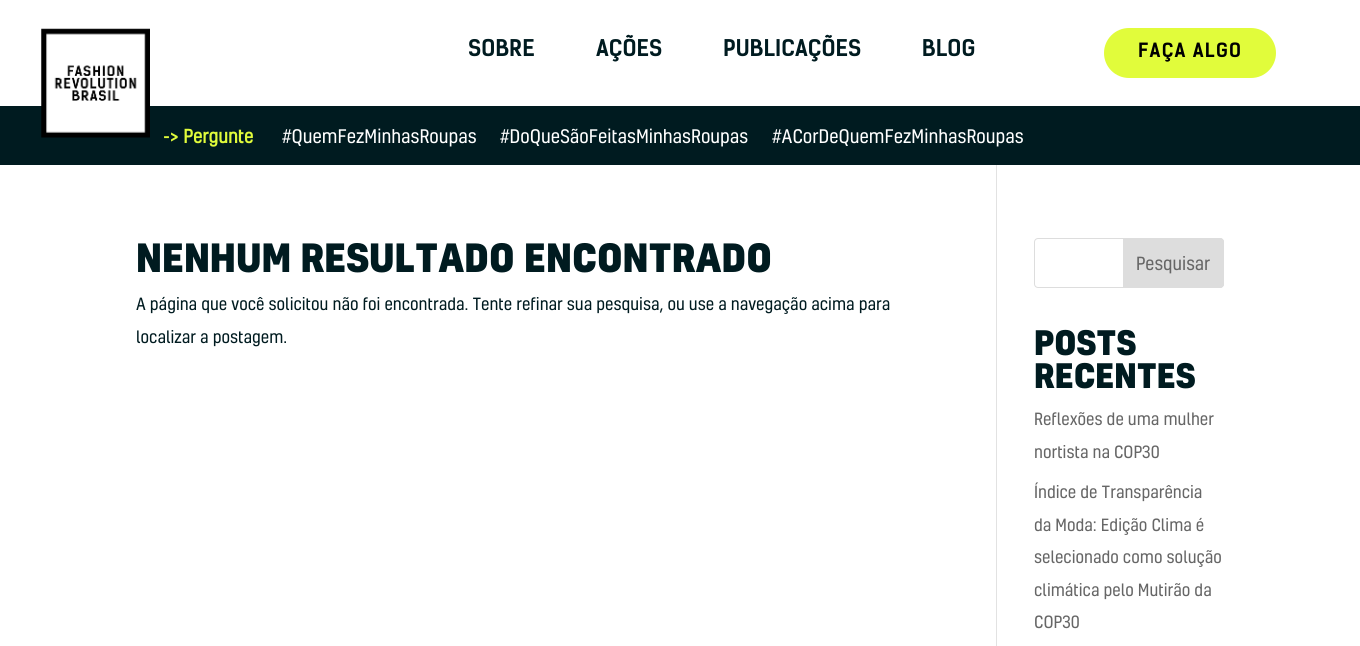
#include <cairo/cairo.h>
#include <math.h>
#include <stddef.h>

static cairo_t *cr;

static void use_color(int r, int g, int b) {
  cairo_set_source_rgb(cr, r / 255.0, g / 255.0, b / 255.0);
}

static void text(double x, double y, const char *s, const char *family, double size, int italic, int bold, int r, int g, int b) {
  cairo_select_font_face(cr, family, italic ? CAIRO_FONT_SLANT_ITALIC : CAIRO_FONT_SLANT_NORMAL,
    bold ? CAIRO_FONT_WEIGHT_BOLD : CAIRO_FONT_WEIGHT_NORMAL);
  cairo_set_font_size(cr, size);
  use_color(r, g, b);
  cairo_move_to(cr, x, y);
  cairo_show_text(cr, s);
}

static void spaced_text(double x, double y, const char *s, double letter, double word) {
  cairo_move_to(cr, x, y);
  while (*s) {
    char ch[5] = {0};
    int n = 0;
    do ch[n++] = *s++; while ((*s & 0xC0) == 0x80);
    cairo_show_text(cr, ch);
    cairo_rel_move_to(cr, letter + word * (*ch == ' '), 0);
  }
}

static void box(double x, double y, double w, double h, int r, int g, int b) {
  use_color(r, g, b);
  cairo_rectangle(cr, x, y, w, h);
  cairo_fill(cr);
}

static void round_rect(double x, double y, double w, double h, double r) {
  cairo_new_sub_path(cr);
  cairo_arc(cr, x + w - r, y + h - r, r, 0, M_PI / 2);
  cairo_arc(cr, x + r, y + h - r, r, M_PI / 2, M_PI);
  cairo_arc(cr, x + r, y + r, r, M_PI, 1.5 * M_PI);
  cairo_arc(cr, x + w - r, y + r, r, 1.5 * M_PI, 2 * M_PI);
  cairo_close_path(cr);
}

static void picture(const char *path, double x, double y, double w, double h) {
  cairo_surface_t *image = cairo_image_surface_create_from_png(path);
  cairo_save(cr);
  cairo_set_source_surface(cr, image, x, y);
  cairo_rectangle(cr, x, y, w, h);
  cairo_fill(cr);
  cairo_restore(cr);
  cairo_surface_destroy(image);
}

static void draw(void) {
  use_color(255, 255, 255);
  cairo_paint(cr);
  use_color(225, 252, 59);
  round_rect(1104, 28, 172, 50, 25);
  cairo_fill(cr);
  box(0, 106, 1360, 59, 0, 27, 32);
  picture("img_01.png", 41, 28, 109, 110);
  box(996, 165, 1, 481, 226, 226, 226);
  round_rect(1034.5, 238.5, 189, 49, 3.5);
  use_color(221, 221, 221);
  cairo_set_line_width(cr, 1);
  cairo_stroke(cr);
  cairo_new_path(cr);
  cairo_move_to(cr, 1123.5, 238.5);
  cairo_line_to(cr, 1220, 238.5);
  cairo_curve_to(cr, 1222, 238.5, 1223.5, 240, 1223.5, 242);
  cairo_line_to(cr, 1223.5, 284);
  cairo_curve_to(cr, 1223.5, 286, 1222, 287.5, 1220, 287.5);
  cairo_line_to(cr, 1123.5, 287.5);
  cairo_close_path(cr);
  cairo_fill_preserve(cr);
  cairo_stroke(cr);
  text(468, 56, "SOBRE", "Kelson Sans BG", 22, 0, 1, 0, 27, 32);
  text(596, 56, "AÇÕES", "Kelson Sans BG", 22, 0, 1, 0, 27, 32);
  text(723, 56, "PUBLICAÇÕES", "Kelson Sans BG", 22, 0, 1, 0, 27, 32);
  text(922, 56, "BLOG", "Kelson Sans BG", 22, 0, 1, 0, 27, 32);
  cairo_set_font_size(cr, 18.75);
  use_color(0, 0, 0);
  spaced_text(1138, 57, "FAÇA ALGO", 1.25, 0);
  text(163, 143, "-> Pergunte", "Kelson", 18, 0, 1, 225, 252, 59);
  text(282, 143, "#QuemFezMinhasRoupas", "Kelson", 18, 0, 0, 255, 255, 255);
  text(500, 143, "#DoQueSãoFeitasMinhasRoupas", "Kelson", 18, 0, 0, 255, 255, 255);
  text(772, 143, "#ACorDeQuemFezMinhasRoupas", "Kelson", 18, 0, 0, 255, 255, 255);
  text(136, 272, "NENHUM RESULTADO ENCONTRADO", "Kelson ExtraBold", 37.5, 0, 0, 0, 27, 32);
  text(136, 310, "A página que você solicitou não foi encontrada. Tente refinar sua pesquisa, ou use a navegação acima para", "Kelson", 16.25, 0, 0, 0, 27, 32);
  text(136, 343, "localizar a postagem.", "Kelson", 16.25, 0, 0, 0, 27, 32);
  text(1136, 270, "Pesquisar", "Kelson", 17.5, 0, 0, 102, 102, 102);
  text(1034, 355, "POSTS", "Kelson ExtraBold", 32.5, 0, 0, 0, 27, 32);
  text(1034, 388, "RECENTES", "Kelson ExtraBold", 32.5, 0, 0, 0, 27, 32);
  text(1034, 425, "Reflexões de uma mulher", "Kelson", 16.25, 0, 0, 102, 102, 102);
  text(1034, 458, "nortista na COP30", "Kelson", 16.25, 0, 0, 102, 102, 102);
  text(1034, 498, "Índice de Transparência", "Kelson", 16.25, 0, 0, 102, 102, 102);
  text(1034, 531, "da Moda: Edição Clima é", "Kelson", 16.25, 0, 0, 102, 102, 102);
  text(1034, 563, "selecionado como solução", "Kelson", 16.25, 0, 0, 102, 102, 102);
  text(1034, 596, "climática pelo Mutirão da", "Kelson", 16.25, 0, 0, 102, 102, 102);
  text(1034, 628, "COP30", "Kelson", 16.25, 0, 0, 102, 102, 102);
}

int main(void) {
  cairo_surface_t *surface = cairo_image_surface_create(CAIRO_FORMAT_RGB24, 1360, 646);
  cr = cairo_create(surface);
  cairo_font_options_t *options = cairo_font_options_create();
  cairo_font_options_set_hint_metrics(options, CAIRO_HINT_METRICS_OFF);
  cairo_font_options_set_hint_style(options, CAIRO_HINT_STYLE_NONE);
  cairo_set_font_options(cr, options);
  cairo_set_miter_limit(cr, 4);
  draw();
  cairo_surface_write_to_png(surface, "out.png");
  cairo_font_options_destroy(options);
  cairo_destroy(cr);
  cairo_surface_destroy(surface);
  return 0;
}
